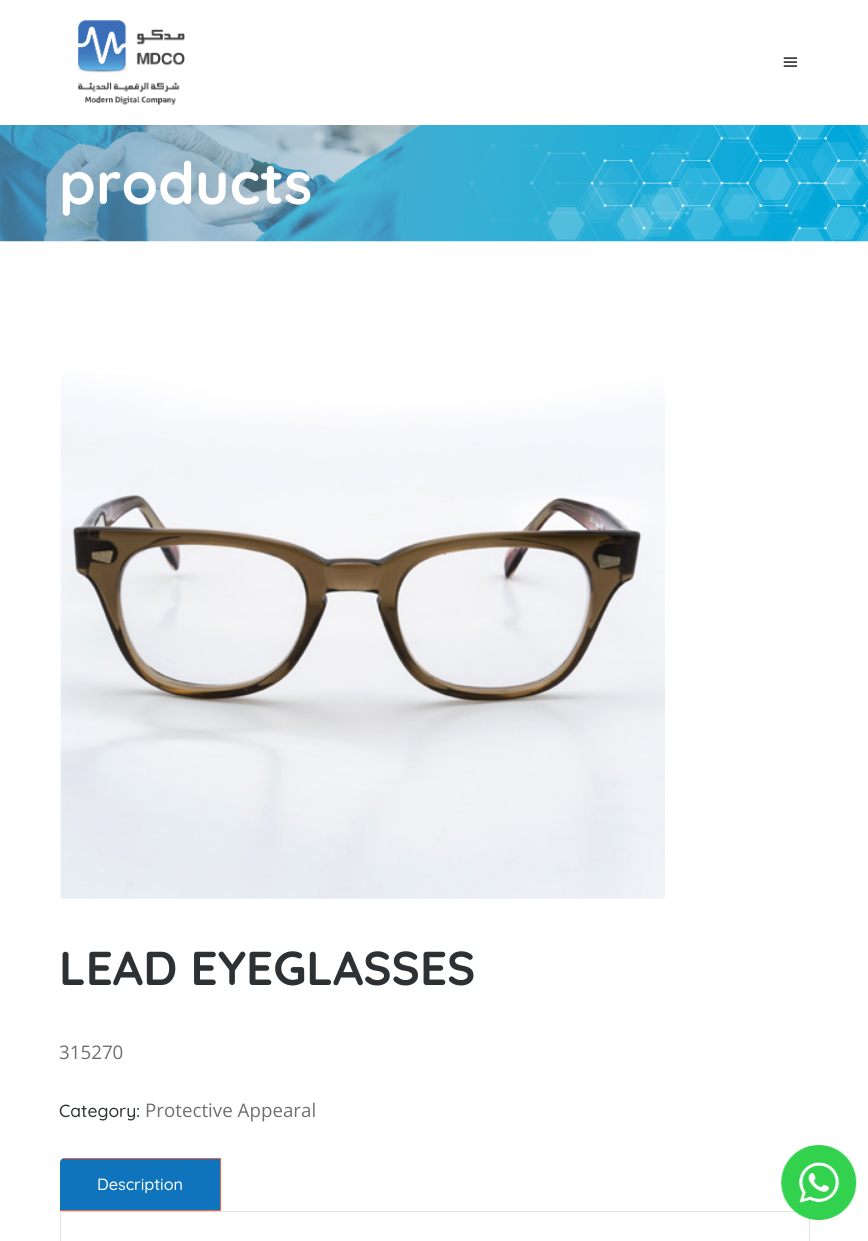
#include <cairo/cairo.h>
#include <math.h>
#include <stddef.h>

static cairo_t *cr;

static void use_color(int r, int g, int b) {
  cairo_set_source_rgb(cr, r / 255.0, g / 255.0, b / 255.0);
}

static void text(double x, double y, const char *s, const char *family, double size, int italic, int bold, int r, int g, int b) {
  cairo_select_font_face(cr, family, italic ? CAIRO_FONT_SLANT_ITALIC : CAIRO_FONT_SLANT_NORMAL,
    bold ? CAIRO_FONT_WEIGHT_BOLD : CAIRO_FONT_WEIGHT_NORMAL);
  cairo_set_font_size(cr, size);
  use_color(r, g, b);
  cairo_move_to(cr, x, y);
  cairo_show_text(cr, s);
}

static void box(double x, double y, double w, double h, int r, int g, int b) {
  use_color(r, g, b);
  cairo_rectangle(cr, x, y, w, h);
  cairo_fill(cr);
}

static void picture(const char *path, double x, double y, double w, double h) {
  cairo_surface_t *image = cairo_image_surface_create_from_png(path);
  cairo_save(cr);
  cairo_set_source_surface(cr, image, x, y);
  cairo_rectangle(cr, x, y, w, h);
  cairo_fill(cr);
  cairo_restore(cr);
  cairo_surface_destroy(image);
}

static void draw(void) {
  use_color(255, 255, 255);
  cairo_paint(cr);
  picture("img_01.png", 76, 20, 109, 85);
  picture("img_02.png", 783, 57, 15, 10);
  picture("img_03.png", 0, 125, 868, 117);
  picture("img_04.png", 60, 373, 605, 526);
  use_color(16, 116, 188);
  cairo_new_path(cr);
  cairo_move_to(cr, 65, 1158);
  cairo_line_to(cr, 221, 1158);
  cairo_line_to(cr, 221, 1211);
  cairo_line_to(cr, 60, 1211);
  cairo_line_to(cr, 60, 1163);
  cairo_curve_to(cr, 60, 1160, 62, 1158, 65, 1158);
  cairo_close_path(cr);
  cairo_fill(cr);
  box(63, 1158, 158, 1, 255, 95, 64);
  box(220, 1158, 1, 53, 255, 95, 64);
  box(60, 1210, 161, 1, 255, 95, 64);
  cairo_rectangle(cr, 60.5, 1211.5, 749, 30);
  use_color(226, 226, 226);
  cairo_set_line_width(cr, 1);
  cairo_stroke(cr);
  picture("img_05.png", 781, 1145, 76, 75);
  text(59, 204, "products", "Quicksand", 58.75, 0, 1, 255, 255, 255);
  text(59, 985, "LEAD EYEGLASSES", "Quicksand", 47.5, 0, 1, 45, 49, 52);
  text(59, 1059, "315270", "Open Sans", 18.75, 0, 0, 113, 111, 111);
  text(59, 1117, "Category:", "Quicksand Medium", 17.5, 0, 0, 45, 49, 52);
  text(145, 1117, "Protective Appearal", "Open Sans", 18.75, 0, 0, 113, 111, 111);
  text(97, 1190, "Description", "Quicksand Medium", 16.25, 0, 0, 255, 255, 255);
}

int main(void) {
  cairo_surface_t *surface = cairo_image_surface_create(CAIRO_FORMAT_RGB24, 868, 1241);
  cr = cairo_create(surface);
  cairo_font_options_t *options = cairo_font_options_create();
  cairo_font_options_set_hint_metrics(options, CAIRO_HINT_METRICS_OFF);
  cairo_font_options_set_hint_style(options, CAIRO_HINT_STYLE_NONE);
  cairo_set_font_options(cr, options);
  cairo_set_miter_limit(cr, 4);
  draw();
  cairo_surface_write_to_png(surface, "out.png");
  cairo_font_options_destroy(options);
  cairo_destroy(cr);
  cairo_surface_destroy(surface);
  return 0;
}
